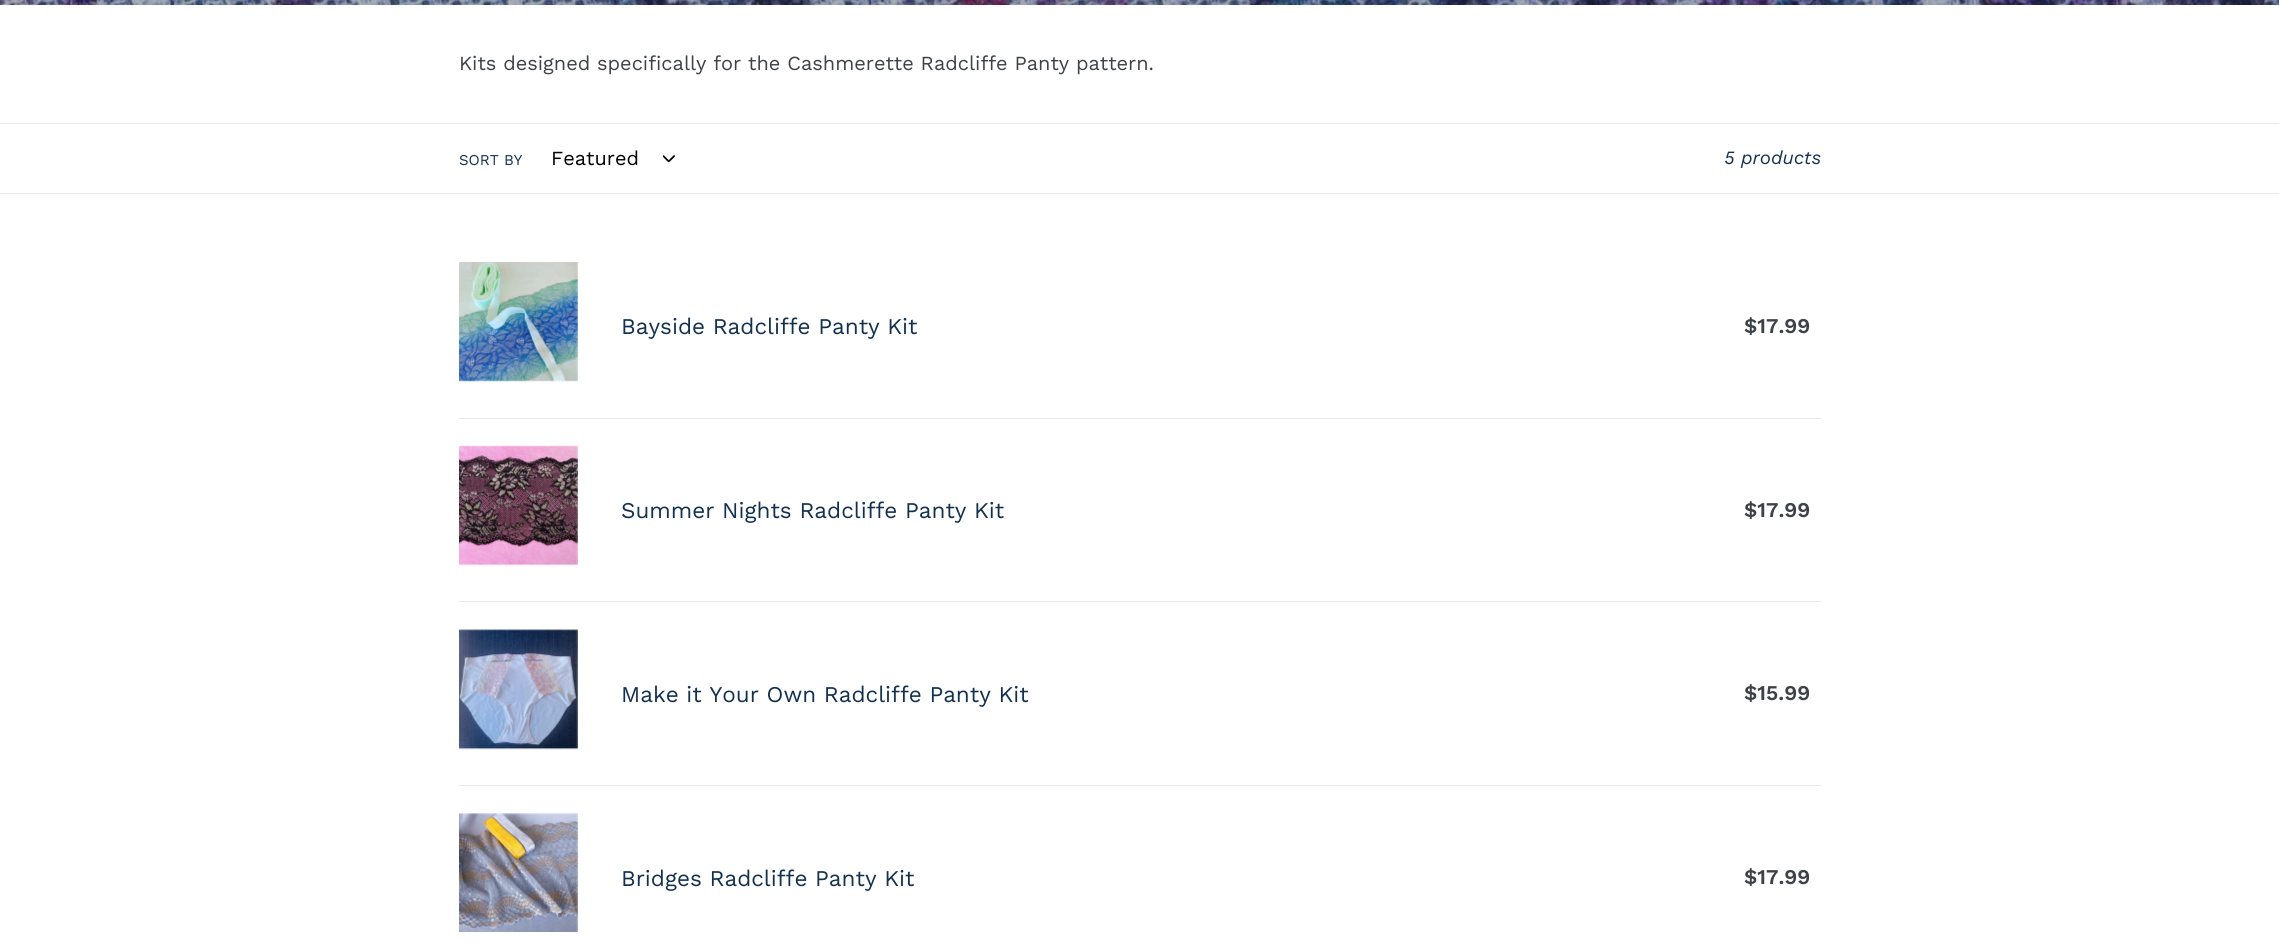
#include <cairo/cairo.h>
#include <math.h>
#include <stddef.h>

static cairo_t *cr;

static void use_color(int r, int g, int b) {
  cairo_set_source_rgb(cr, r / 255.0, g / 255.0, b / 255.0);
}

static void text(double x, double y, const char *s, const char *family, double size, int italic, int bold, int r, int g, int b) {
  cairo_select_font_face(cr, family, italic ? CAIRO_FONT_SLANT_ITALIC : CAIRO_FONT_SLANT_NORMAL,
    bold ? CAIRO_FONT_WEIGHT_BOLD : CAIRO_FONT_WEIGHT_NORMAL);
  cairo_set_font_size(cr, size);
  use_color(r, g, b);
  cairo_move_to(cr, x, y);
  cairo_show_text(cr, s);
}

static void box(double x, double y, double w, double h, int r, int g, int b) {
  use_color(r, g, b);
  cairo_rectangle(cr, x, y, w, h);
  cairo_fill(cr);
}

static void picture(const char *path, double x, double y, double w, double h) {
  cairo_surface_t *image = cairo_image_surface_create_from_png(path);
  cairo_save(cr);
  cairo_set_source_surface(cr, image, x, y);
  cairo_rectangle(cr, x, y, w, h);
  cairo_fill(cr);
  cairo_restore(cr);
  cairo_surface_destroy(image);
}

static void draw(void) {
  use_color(255, 255, 255);
  cairo_paint(cr);
  picture("img_01.png", 0, 0, 2279, 5);
  box(0, 123, 2279, 1, 232, 233, 235);
  box(0, 193, 2279, 1, 232, 233, 235);
  picture("img_02.png", 663, 155, 12, 8);
  box(459, 418, 1362, 1, 232, 233, 235);
  picture("img_03.png", 459, 262, 119, 120);
  box(459, 601, 1362, 1, 232, 233, 235);
  picture("img_04.png", 459, 445, 119, 121);
  box(459, 785, 1362, 1, 232, 233, 235);
  picture("img_05.png", 459, 629, 119, 121);
  picture("img_06.png", 459, 813, 119, 119);
  text(459, 70, "Kits designed specifically for the Cashmerette Radcliffe Panty pattern.", "Work Sans", 20, 0, 0, 61, 66, 70);
  text(459, 165, "SORT BY", "Work Sans", 15, 0, 0, 19, 49, 79);
  text(551, 165, "Featured", "Work Sans", 20, 0, 0, 0, 0, 0);
  text(1724, 164, "5 products", "Work Sans", 18.75, 1, 0, 19, 49, 79);
  text(621, 334, "Bayside Radcliffe Panty Kit", "Work Sans", 22.5, 0, 0, 19, 49, 79);
  text(1744, 333, "$17.99", "Work Sans SemiBold", 21, 0, 0, 61, 66, 70);
  text(621, 518, "Summer Nights Radcliffe Panty Kit", "Work Sans", 22.5, 0, 0, 19, 49, 79);
  text(1744, 517, "$17.99", "Work Sans SemiBold", 21, 0, 0, 61, 66, 70);
  text(621, 702, "Make it Your Own Radcliffe Panty Kit", "Work Sans", 22.5, 0, 0, 19, 49, 79);
  text(1744, 700, "$15.99", "Work Sans SemiBold", 21, 0, 0, 61, 66, 70);
  text(621, 886, "Bridges Radcliffe Panty Kit", "Work Sans", 22.5, 0, 0, 19, 49, 79);
  text(1744, 884, "$17.99", "Work Sans SemiBold", 21, 0, 0, 61, 66, 70);
}

int main(void) {
  cairo_surface_t *surface = cairo_image_surface_create(CAIRO_FORMAT_RGB24, 2279, 948);
  cr = cairo_create(surface);
  cairo_font_options_t *options = cairo_font_options_create();
  cairo_font_options_set_hint_metrics(options, CAIRO_HINT_METRICS_OFF);
  cairo_font_options_set_hint_style(options, CAIRO_HINT_STYLE_NONE);
  cairo_set_font_options(cr, options);
  cairo_set_miter_limit(cr, 4);
  draw();
  cairo_surface_write_to_png(surface, "out.png");
  cairo_font_options_destroy(options);
  cairo_destroy(cr);
  cairo_surface_destroy(surface);
  return 0;
}
